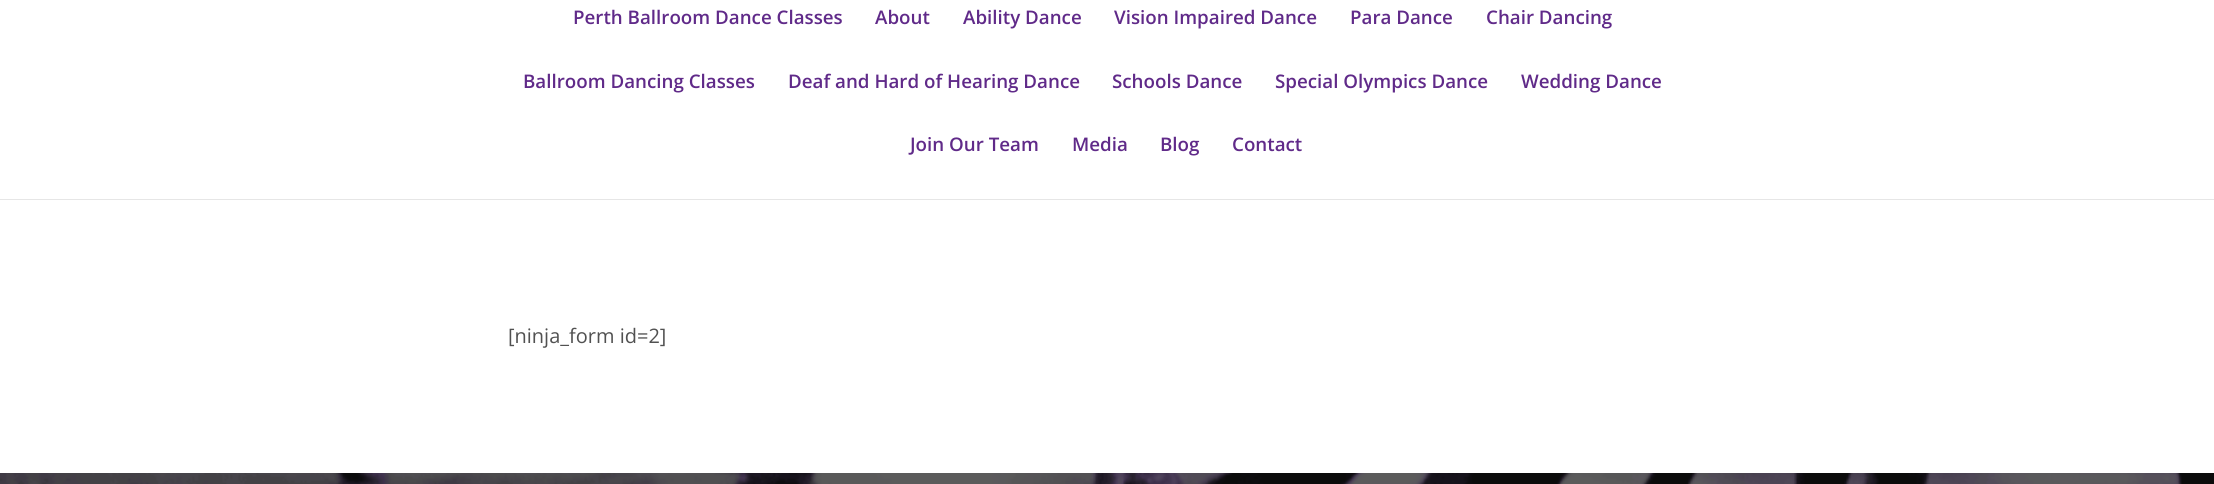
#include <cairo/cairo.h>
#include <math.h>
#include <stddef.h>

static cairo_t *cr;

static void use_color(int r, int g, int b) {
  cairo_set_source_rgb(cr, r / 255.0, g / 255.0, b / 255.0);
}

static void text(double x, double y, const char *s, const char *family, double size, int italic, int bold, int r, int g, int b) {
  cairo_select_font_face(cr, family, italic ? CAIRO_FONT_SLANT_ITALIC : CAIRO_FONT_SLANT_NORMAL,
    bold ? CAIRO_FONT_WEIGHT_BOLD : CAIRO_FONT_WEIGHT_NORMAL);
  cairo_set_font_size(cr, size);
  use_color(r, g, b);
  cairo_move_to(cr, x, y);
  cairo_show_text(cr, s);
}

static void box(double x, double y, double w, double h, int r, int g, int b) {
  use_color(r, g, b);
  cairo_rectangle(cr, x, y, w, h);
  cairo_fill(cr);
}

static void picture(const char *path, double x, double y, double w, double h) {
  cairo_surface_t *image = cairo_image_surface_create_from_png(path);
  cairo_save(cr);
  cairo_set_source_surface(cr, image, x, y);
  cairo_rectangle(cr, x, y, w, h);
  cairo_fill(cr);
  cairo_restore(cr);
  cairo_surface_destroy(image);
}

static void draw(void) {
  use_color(255, 255, 255);
  cairo_paint(cr);
  picture("img_01.png", 0, 473, 2214, 11);
  box(0, 199, 2214, 1, 230, 230, 230);
  cairo_set_source_rgba(cr, 0.067, 0.067, 0.067, 0.68);
  cairo_rectangle(cr, 0, 473, 2214, 11);
  cairo_fill(cr);
  text(573, 24, "Perth Ballroom Dance Classes", "Open Sans SemiBold", 18.75, 0, 0, 96, 42, 137);
  text(875, 24, "About", "Open Sans SemiBold", 18.75, 0, 0, 96, 42, 137);
  text(963, 24, "Ability Dance", "Open Sans SemiBold", 18.75, 0, 0, 96, 42, 137);
  text(1114, 24, "Vision Impaired Dance", "Open Sans SemiBold", 18.75, 0, 0, 96, 42, 137);
  text(1350, 24, "Para Dance", "Open Sans SemiBold", 18.75, 0, 0, 96, 42, 137);
  text(1486, 24, "Chair Dancing", "Open Sans SemiBold", 18.75, 0, 0, 96, 42, 137);
  text(523, 88, "Ballroom Dancing Classes", "Open Sans SemiBold", 18.75, 0, 0, 96, 42, 137);
  text(788, 88, "Deaf and Hard of Hearing Dance", "Open Sans SemiBold", 18.75, 0, 0, 96, 42, 137);
  text(1112, 88, "Schools Dance", "Open Sans SemiBold", 18.75, 0, 0, 96, 42, 137);
  text(1275, 88, "Special Olympics Dance", "Open Sans SemiBold", 18.75, 0, 0, 96, 42, 137);
  text(1521, 88, "Wedding Dance", "Open Sans SemiBold", 18.75, 0, 0, 96, 42, 137);
  text(910, 151, "Join Our Team", "Open Sans SemiBold", 18.75, 0, 0, 96, 42, 137);
  text(1072, 151, "Media", "Open Sans SemiBold", 18.75, 0, 0, 96, 42, 137);
  text(1160, 151, "Blog", "Open Sans SemiBold", 18.75, 0, 0, 96, 42, 137);
  text(1232, 151, "Contact", "Open Sans SemiBold", 18.75, 0, 0, 96, 42, 137);
  text(508, 343, "[ninja_form id=2]", "Open Sans", 20, 0, 0, 81, 81, 81);
}

int main(void) {
  cairo_surface_t *surface = cairo_image_surface_create(CAIRO_FORMAT_RGB24, 2214, 484);
  cr = cairo_create(surface);
  cairo_font_options_t *options = cairo_font_options_create();
  cairo_font_options_set_hint_metrics(options, CAIRO_HINT_METRICS_OFF);
  cairo_font_options_set_hint_style(options, CAIRO_HINT_STYLE_NONE);
  cairo_set_font_options(cr, options);
  cairo_set_miter_limit(cr, 4);
  draw();
  cairo_surface_write_to_png(surface, "out.png");
  cairo_font_options_destroy(options);
  cairo_destroy(cr);
  cairo_surface_destroy(surface);
  return 0;
}
